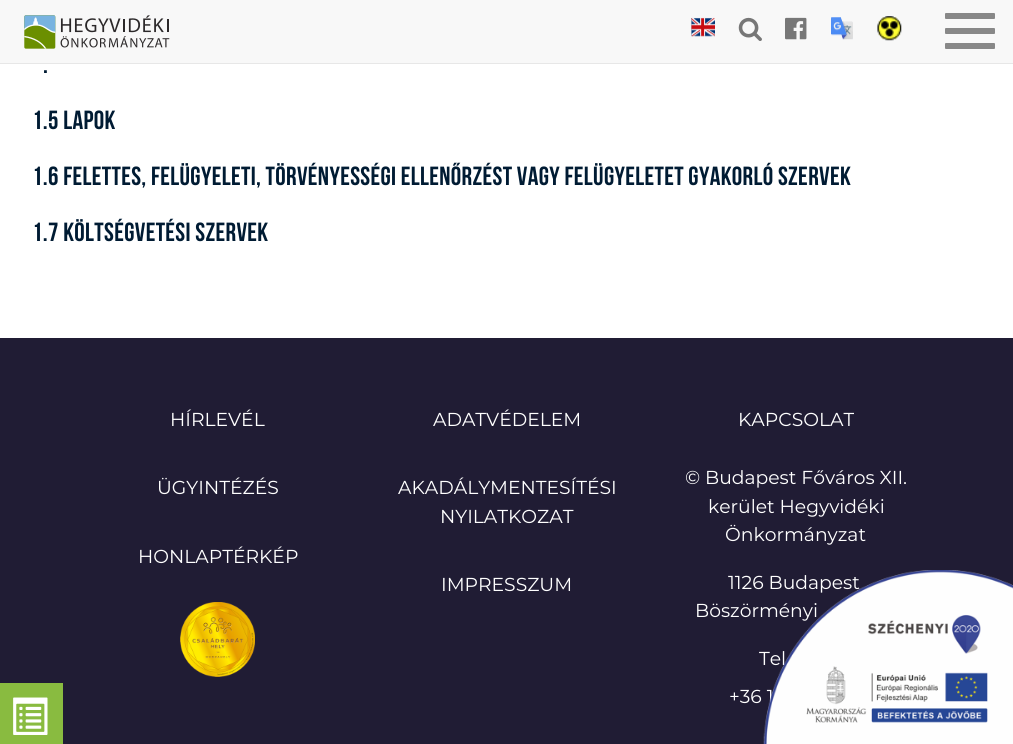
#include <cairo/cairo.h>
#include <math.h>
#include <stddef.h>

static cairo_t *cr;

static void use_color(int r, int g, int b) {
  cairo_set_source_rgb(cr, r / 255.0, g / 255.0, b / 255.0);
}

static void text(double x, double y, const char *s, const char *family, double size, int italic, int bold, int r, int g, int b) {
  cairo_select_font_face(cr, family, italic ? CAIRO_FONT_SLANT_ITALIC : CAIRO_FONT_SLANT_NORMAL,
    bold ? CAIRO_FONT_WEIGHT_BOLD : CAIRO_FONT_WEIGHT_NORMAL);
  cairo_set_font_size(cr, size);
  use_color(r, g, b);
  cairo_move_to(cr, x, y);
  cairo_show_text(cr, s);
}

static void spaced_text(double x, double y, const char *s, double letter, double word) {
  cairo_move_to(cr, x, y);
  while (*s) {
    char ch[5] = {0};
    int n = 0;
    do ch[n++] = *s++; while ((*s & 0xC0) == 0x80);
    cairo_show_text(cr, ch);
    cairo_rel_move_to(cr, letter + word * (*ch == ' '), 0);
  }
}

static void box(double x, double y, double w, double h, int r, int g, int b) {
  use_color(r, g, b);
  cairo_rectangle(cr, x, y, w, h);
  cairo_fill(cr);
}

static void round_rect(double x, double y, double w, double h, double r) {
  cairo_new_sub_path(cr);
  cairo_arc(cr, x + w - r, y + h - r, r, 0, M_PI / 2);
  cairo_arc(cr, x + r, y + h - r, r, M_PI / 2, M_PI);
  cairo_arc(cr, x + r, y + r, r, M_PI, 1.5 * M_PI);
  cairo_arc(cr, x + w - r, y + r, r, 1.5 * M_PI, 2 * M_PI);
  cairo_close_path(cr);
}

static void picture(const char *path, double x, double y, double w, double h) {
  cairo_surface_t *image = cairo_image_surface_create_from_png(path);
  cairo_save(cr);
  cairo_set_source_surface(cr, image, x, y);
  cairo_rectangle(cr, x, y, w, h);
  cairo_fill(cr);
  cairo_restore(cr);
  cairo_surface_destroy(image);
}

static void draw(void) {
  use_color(255, 255, 255);
  cairo_paint(cr);
  box(0, 0, 1013, 63, 248, 248, 248);
  box(0, 63, 1013, 1, 231, 231, 231);
  picture("img_01.png", 24, 15, 146, 34);
  picture("img_02.png", 691, 17, 24, 20);
  picture("img_03.png", 738, 17, 24, 24);
  picture("img_04.png", 785, 17, 22, 23);
  picture("img_05.png", 831, 17, 22, 23);
  picture("img_06.png", 877, 16, 25, 25);
  use_color(136, 136, 136);
  round_rect(945, 13, 50, 6, 1);
  cairo_fill(cr);
  round_rect(945, 28, 50, 6, 1);
  cairo_fill(cr);
  round_rect(945, 43, 50, 6, 1);
  cairo_fill(cr);
  box(0, 338, 1013, 406, 32, 28, 52);
  picture("img_07.png", 180, 602, 75, 75);
  box(0, 683, 63, 61, 137, 187, 64);
  picture("img_09.png", 13, 697, 35, 38);
  cairo_select_font_face(cr, "Bebas Neue", CAIRO_FONT_SLANT_NORMAL, CAIRO_FONT_WEIGHT_BOLD);
  cairo_set_font_size(cr, 26.25);
  use_color(0, 27, 51);
  spaced_text(43, 73, ".", 0.35, 0);
  spaced_text(32, 129, "1.5 LAPOK", 0.35, 0);
  spaced_text(32, 185, "1.6 FELETTES, FELÜGYELETI, TÖRVÉNYESSÉGI ELLENŐRZÉST VAGY FELÜGYELETET GYAKORLÓ SZERVEK", 0.35, 0);
  spaced_text(32, 241, "1.7 KÖLTSÉGVETÉSI SZERVEK", 0.35, 0);
  text(170, 426, "HÍRLEVÉL", "Montserrat", 18.75, 0, 0, 255, 255, 255);
  text(157, 494, "ÜGYINTÉZÉS", "Montserrat", 18.75, 0, 0, 255, 255, 255);
  text(138, 563, "HONLAPTÉRKÉP", "Montserrat", 18.75, 0, 0, 255, 255, 255);
  text(433, 426, "ADATVÉDELEM", "Montserrat", 18.75, 0, 0, 255, 255, 255);
  text(398, 494, "AKADÁLYMENTESÍTÉSI", "Montserrat", 18.75, 0, 0, 255, 255, 255);
  text(440, 523, "NYILATKOZAT", "Montserrat", 18.75, 0, 0, 255, 255, 255);
  text(441, 591, "IMPRESSZUM", "Montserrat", 18.75, 0, 0, 255, 255, 255);
  text(738, 426, "KAPCSOLAT", "Montserrat", 18.75, 0, 0, 255, 255, 255);
  text(685, 484, "© Budapest Főváros XII.", "Montserrat", 18.75, 0, 0, 255, 255, 255);
  text(708, 513, "kerület Hegyvidéki", "Montserrat", 18.75, 0, 0, 255, 255, 255);
  text(725, 541, "Önkormányzat", "Montserrat", 18.75, 0, 0, 255, 255, 255);
  text(728, 589, "1126 Budapest", "Montserrat", 18.75, 0, 0, 255, 255, 255);
  text(695, 617, "Böszörményi", "Montserrat", 18.75, 0, 0, 255, 255, 255);
  text(759, 665, "Tel", "Montserrat", 18.75, 0, 0, 255, 255, 255);
  text(729, 703, "+36 1", "Montserrat", 18.75, 0, 0, 255, 255, 255);
  picture("img_08.png", 763, 570, 250, 174);
}

int main(void) {
  cairo_surface_t *surface = cairo_image_surface_create(CAIRO_FORMAT_RGB24, 1013, 744);
  cr = cairo_create(surface);
  cairo_font_options_t *options = cairo_font_options_create();
  cairo_font_options_set_hint_metrics(options, CAIRO_HINT_METRICS_OFF);
  cairo_font_options_set_hint_style(options, CAIRO_HINT_STYLE_NONE);
  cairo_set_font_options(cr, options);
  cairo_set_miter_limit(cr, 4);
  draw();
  cairo_surface_write_to_png(surface, "out.png");
  cairo_font_options_destroy(options);
  cairo_destroy(cr);
  cairo_surface_destroy(surface);
  return 0;
}
